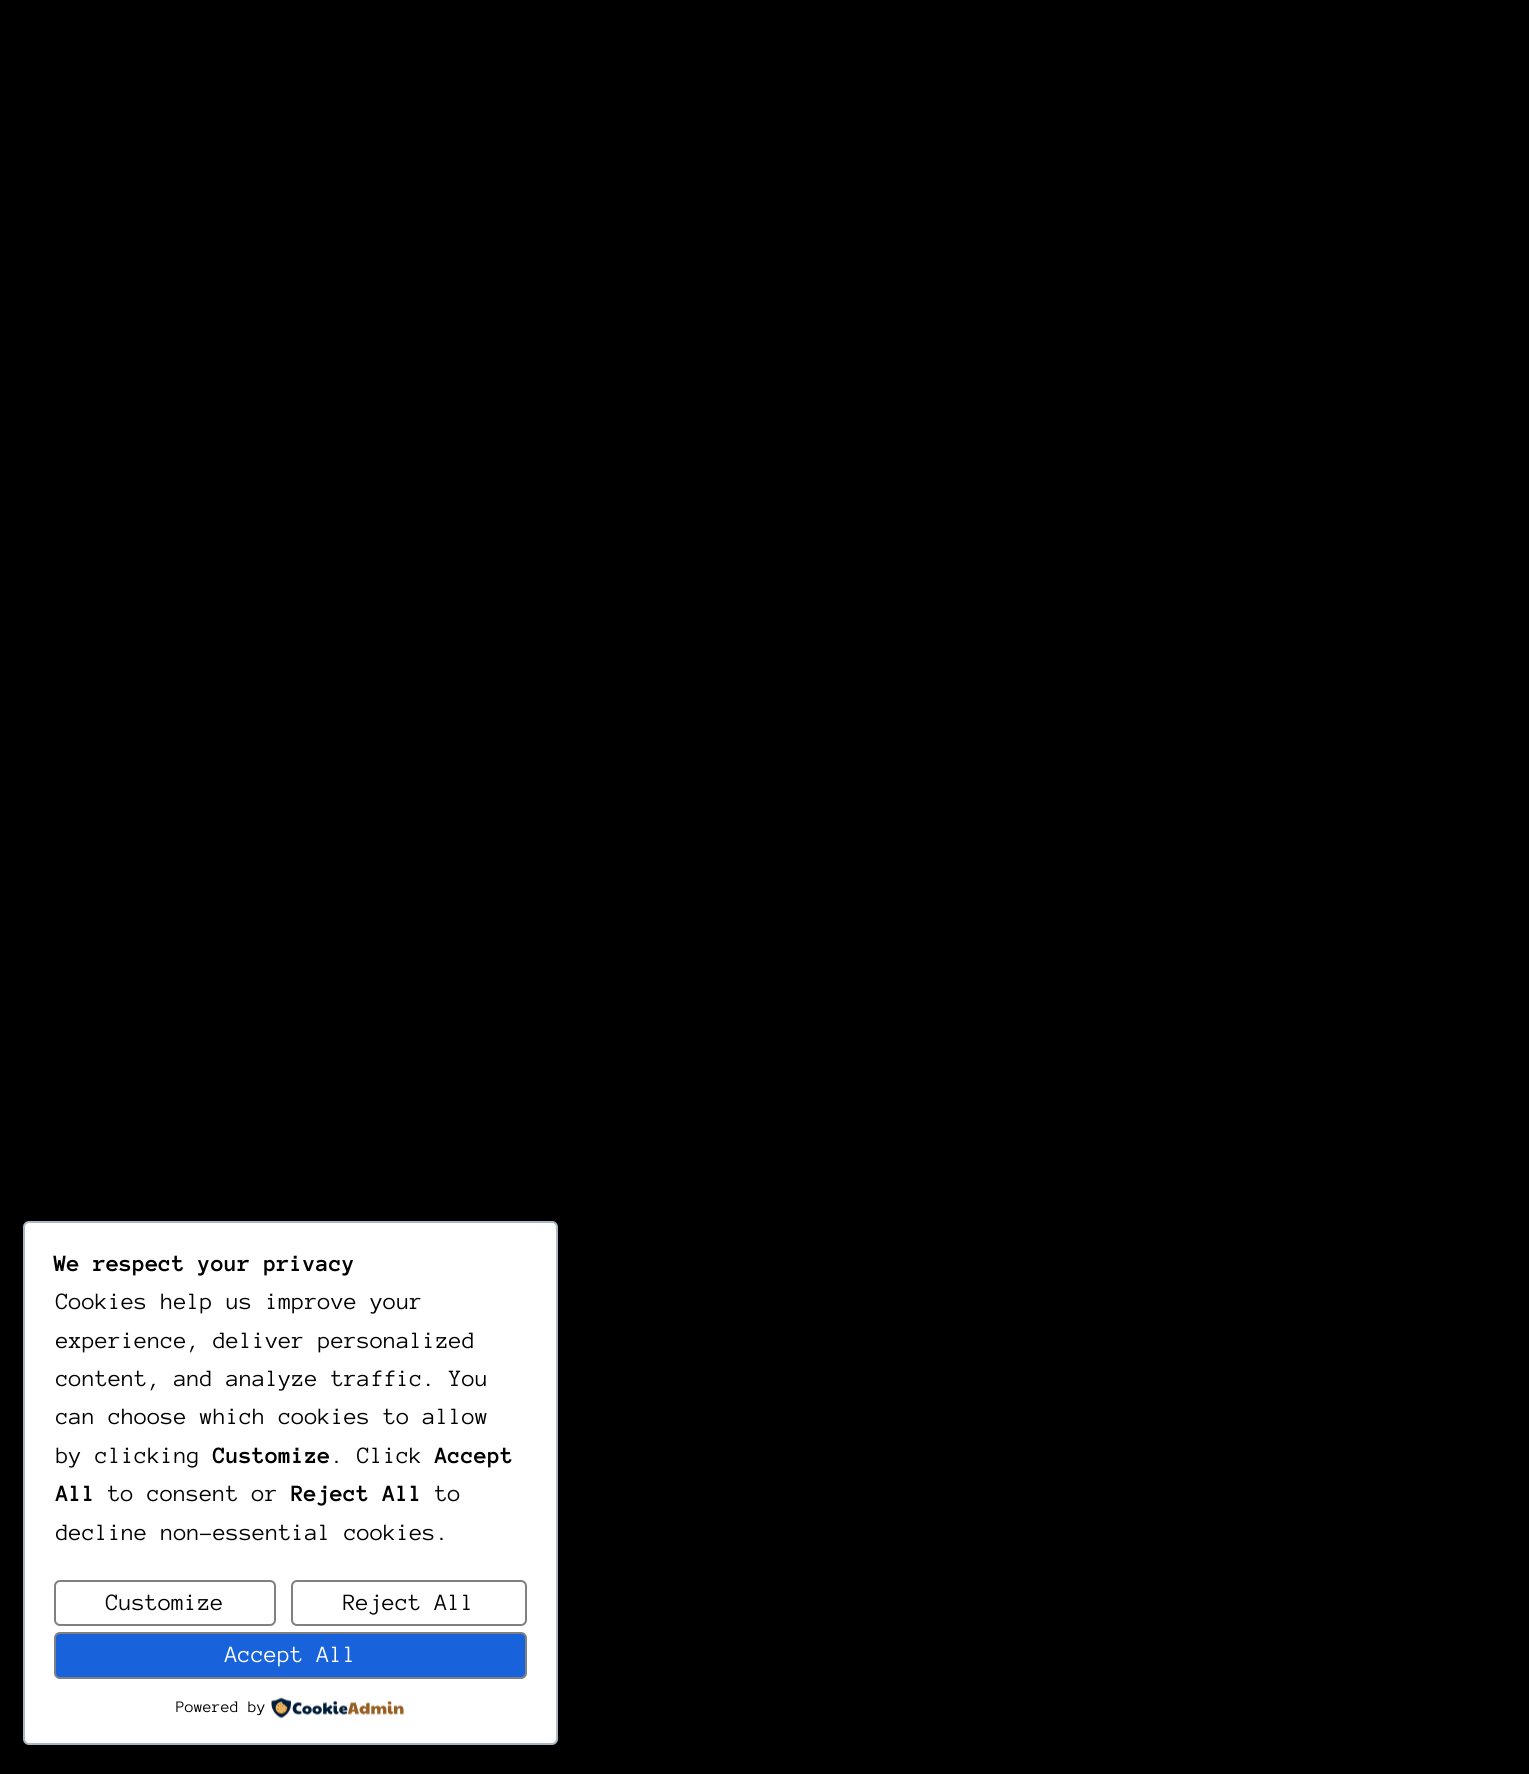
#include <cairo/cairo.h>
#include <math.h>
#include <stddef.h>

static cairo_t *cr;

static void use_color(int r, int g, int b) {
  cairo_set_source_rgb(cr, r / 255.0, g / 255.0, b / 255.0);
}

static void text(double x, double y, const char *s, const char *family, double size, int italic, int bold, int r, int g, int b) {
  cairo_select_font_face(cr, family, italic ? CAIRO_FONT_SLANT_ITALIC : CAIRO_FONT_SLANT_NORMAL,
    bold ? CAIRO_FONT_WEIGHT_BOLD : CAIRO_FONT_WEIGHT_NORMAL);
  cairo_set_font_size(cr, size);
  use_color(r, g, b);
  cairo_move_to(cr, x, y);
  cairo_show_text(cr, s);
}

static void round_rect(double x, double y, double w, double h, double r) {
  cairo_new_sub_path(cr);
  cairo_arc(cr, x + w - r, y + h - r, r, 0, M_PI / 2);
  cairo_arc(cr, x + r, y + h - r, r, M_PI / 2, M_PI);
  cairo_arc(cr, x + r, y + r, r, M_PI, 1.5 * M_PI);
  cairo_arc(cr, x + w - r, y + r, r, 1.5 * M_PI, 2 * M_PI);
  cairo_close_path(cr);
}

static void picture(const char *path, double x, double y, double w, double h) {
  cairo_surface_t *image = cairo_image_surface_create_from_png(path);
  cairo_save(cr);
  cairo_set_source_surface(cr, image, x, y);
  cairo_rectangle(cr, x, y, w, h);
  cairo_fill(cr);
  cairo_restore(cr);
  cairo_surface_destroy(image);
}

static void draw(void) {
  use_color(0, 0, 0);
  cairo_paint(cr);
  use_color(255, 255, 255);
  round_rect(24, 1222, 533, 522, 5);
  cairo_fill_preserve(cr);
  use_color(171, 184, 195);
  cairo_stroke(cr);
  round_rect(55, 1581, 220, 44, 5);
  use_color(128, 128, 128);
  cairo_stroke(cr);
  round_rect(292, 1581, 234, 44, 5);
  cairo_stroke(cr);
  use_color(24, 99, 220);
  round_rect(55, 1633, 471, 45, 5);
  cairo_fill_preserve(cr);
  use_color(128, 128, 128);
  cairo_stroke(cr);
  picture("img_01.png", 271, 1697, 133, 22);
  text(54, 1271, "We respect your privacy", "Anonymous Pro", 24, 0, 1, 0, 0, 0);
  text(56, 1309, "Cookies help us improve your", "Anonymous Pro", 24, 0, 0, 0, 0, 0);
  text(56, 1348, "experience, deliver personalized", "Anonymous Pro", 24, 0, 0, 0, 0, 0);
  text(56, 1386, "content, and analyze traffic. You", "Anonymous Pro", 24, 0, 0, 0, 0, 0);
  text(56, 1424, "can choose which cookies to allow", "Anonymous Pro", 24, 0, 0, 0, 0, 0);
  text(56, 1463, "by clicking", "Anonymous Pro", 24, 0, 0, 0, 0, 0);
  text(213, 1463, "Customize", "Anonymous Pro", 24, 0, 1, 0, 0, 0);
  text(331, 1463, ". Click", "Anonymous Pro", 24, 0, 0, 0, 0, 0);
  text(435, 1463, "Accept", "Anonymous Pro", 24, 0, 1, 0, 0, 0);
  text(56, 1501, "All", "Anonymous Pro", 24, 0, 1, 0, 0, 0);
  text(108, 1501, "to consent or", "Anonymous Pro", 24, 0, 0, 0, 0, 0);
  text(291, 1501, "Reject All", "Anonymous Pro", 24, 0, 1, 0, 0, 0);
  text(435, 1501, "to", "Anonymous Pro", 24, 0, 0, 0, 0, 0);
  text(56, 1540, "decline non-essential cookies.", "Anonymous Pro", 24, 0, 0, 0, 0, 0);
  text(106, 1610, "Customize", "Anonymous Pro", 24, 0, 0, 0, 0, 0);
  text(343, 1610, "Reject All", "Anonymous Pro", 24, 0, 0, 0, 0, 0);
  text(225, 1662, "Accept All", "Anonymous Pro", 24, 0, 0, 255, 255, 255);
  text(176, 1712, "Powered by", "Anonymous Pro", 16.5, 0, 0, 0, 0, 0);
}

int main(void) {
  cairo_surface_t *surface = cairo_image_surface_create(CAIRO_FORMAT_RGB24, 1529, 1774);
  cr = cairo_create(surface);
  cairo_font_options_t *options = cairo_font_options_create();
  cairo_font_options_set_hint_metrics(options, CAIRO_HINT_METRICS_OFF);
  cairo_font_options_set_hint_style(options, CAIRO_HINT_STYLE_NONE);
  cairo_set_font_options(cr, options);
  cairo_set_miter_limit(cr, 4);
  draw();
  cairo_surface_write_to_png(surface, "out.png");
  cairo_font_options_destroy(options);
  cairo_destroy(cr);
  cairo_surface_destroy(surface);
  return 0;
}
